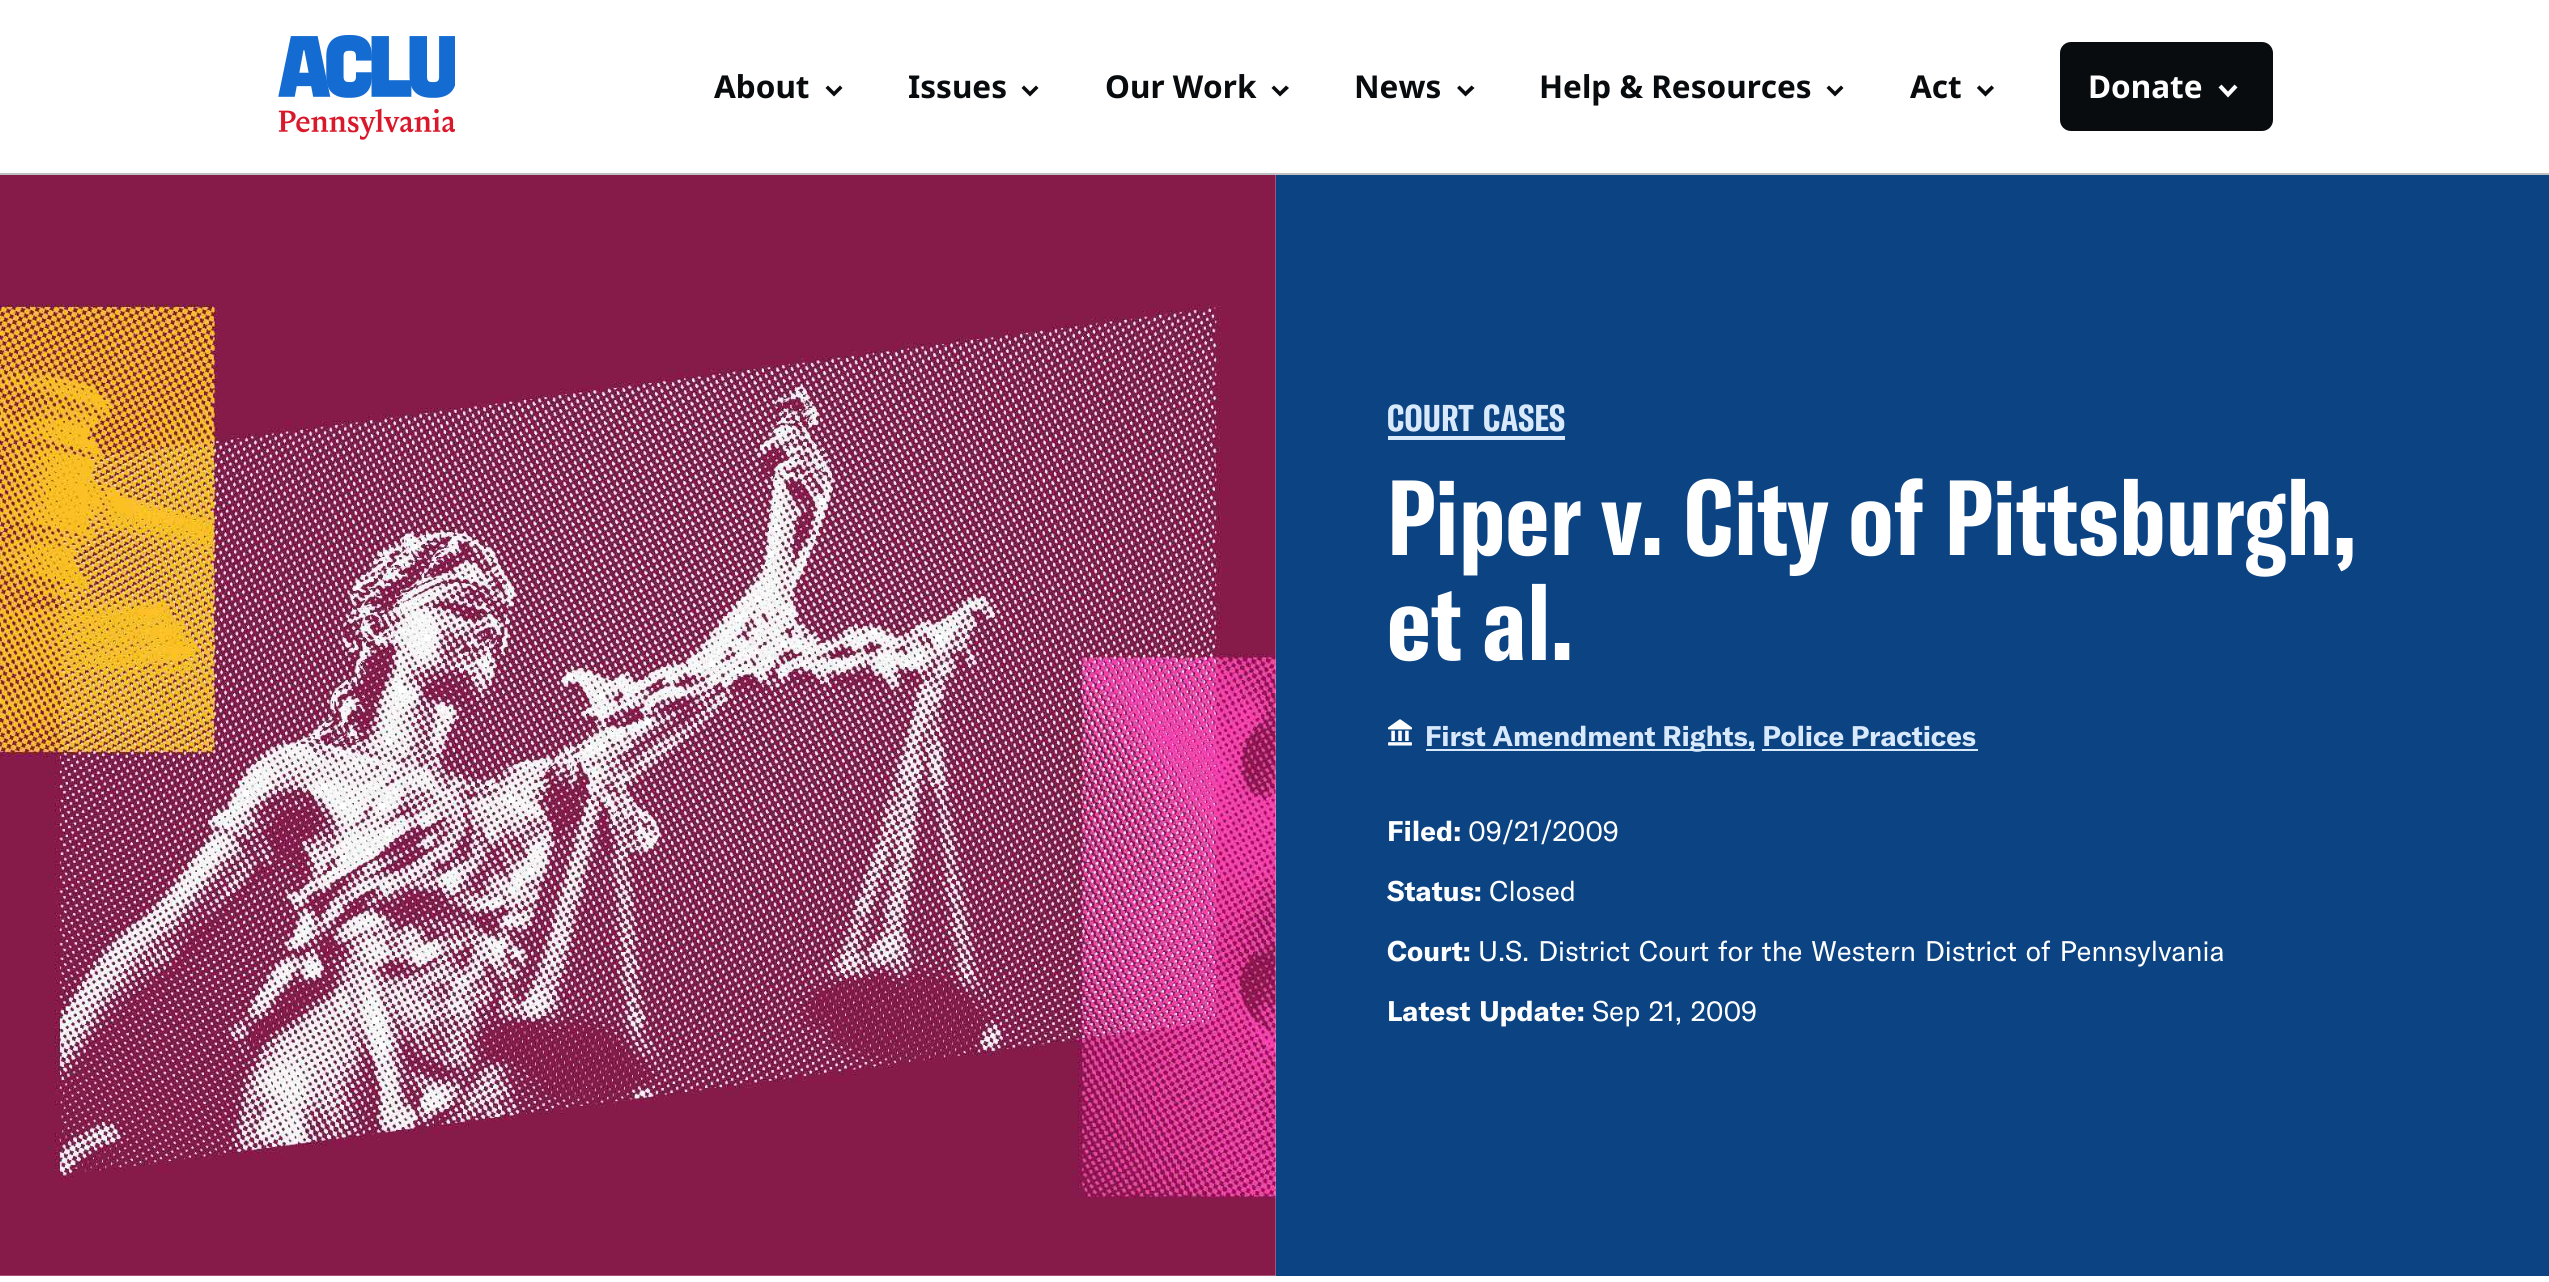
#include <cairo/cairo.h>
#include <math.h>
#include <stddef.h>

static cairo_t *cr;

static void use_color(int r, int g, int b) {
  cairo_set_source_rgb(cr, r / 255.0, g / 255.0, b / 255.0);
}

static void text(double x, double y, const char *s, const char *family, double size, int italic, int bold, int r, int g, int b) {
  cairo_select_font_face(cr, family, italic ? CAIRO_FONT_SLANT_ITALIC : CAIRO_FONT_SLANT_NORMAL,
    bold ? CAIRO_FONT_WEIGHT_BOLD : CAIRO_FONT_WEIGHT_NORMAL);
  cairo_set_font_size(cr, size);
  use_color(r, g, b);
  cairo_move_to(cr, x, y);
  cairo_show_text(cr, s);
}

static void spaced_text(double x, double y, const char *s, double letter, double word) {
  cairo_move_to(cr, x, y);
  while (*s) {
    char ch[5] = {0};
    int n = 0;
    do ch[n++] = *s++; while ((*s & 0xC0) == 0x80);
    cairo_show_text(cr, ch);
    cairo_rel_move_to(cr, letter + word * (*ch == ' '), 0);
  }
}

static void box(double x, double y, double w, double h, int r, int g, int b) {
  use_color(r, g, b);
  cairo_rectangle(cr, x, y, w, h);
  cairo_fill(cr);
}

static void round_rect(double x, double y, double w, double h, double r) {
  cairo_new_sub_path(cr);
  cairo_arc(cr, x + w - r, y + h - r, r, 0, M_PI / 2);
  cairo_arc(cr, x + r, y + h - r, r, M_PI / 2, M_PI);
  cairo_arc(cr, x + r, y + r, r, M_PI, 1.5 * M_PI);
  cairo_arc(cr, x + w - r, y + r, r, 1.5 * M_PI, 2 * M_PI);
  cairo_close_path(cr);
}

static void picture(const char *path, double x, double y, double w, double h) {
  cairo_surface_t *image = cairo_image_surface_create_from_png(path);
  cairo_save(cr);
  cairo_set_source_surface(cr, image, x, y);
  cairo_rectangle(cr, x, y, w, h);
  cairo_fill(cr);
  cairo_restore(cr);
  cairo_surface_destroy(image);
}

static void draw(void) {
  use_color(255, 255, 255);
  cairo_paint(cr);
  box(0, 173, 2549, 2, 191, 191, 191);
  picture("img_01.png", 278, 35, 177, 105);
  use_color(9, 12, 15);
  cairo_set_fill_rule(cr, CAIRO_FILL_RULE_EVEN_ODD);
  cairo_new_path(cr);
  cairo_move_to(cr, 842.5, 88);
  cairo_line_to(cr, 834, 96.5);
  cairo_line_to(cr, 825.5, 88);
  cairo_line_to(cr, 828, 85.5);
  cairo_line_to(cr, 834, 91.5);
  cairo_line_to(cr, 840, 85.5);
  cairo_close_path(cr);
  cairo_fill(cr);
  cairo_new_path(cr);
  cairo_move_to(cr, 1038.5, 88);
  cairo_line_to(cr, 1030, 96.5);
  cairo_line_to(cr, 1021.5, 88);
  cairo_line_to(cr, 1024, 85.5);
  cairo_line_to(cr, 1030, 91.5);
  cairo_line_to(cr, 1036, 85.5);
  cairo_close_path(cr);
  cairo_fill(cr);
  cairo_new_path(cr);
  cairo_move_to(cr, 1289, 88);
  cairo_line_to(cr, 1280, 96.5);
  cairo_line_to(cr, 1271.5, 88);
  cairo_line_to(cr, 1274, 85.5);
  cairo_line_to(cr, 1280, 91.5);
  cairo_line_to(cr, 1286, 85.5);
  cairo_close_path(cr);
  cairo_fill(cr);
  cairo_new_path(cr);
  cairo_move_to(cr, 1474.5, 88);
  cairo_line_to(cr, 1465.5, 96.5);
  cairo_line_to(cr, 1457, 88);
  cairo_line_to(cr, 1459.5, 85.5);
  cairo_line_to(cr, 1465.5, 91.5);
  cairo_line_to(cr, 1471.5, 85.5);
  cairo_close_path(cr);
  cairo_fill(cr);
  cairo_new_path(cr);
  cairo_move_to(cr, 1843.5, 88);
  cairo_line_to(cr, 1835, 96.5);
  cairo_line_to(cr, 1826.5, 88);
  cairo_line_to(cr, 1829, 85.5);
  cairo_line_to(cr, 1835, 91.5);
  cairo_line_to(cr, 1841, 85.5);
  cairo_close_path(cr);
  cairo_fill(cr);
  picture("img_02.png", 1976, 85, 18, 12);
  round_rect(2060, 42, 213, 89, 11);
  cairo_fill(cr);
  cairo_new_path(cr);
  cairo_move_to(cr, 2220, 86);
  cairo_line_to(cr, 2228, 94.5);
  cairo_line_to(cr, 2236, 86);
  use_color(255, 255, 255);
  cairo_set_line_width(cr, 4.1);
  cairo_stroke(cr);
  picture("img_03.png", 0, 175, 1276, 1101);
  box(1276, 175, 1273, 1101, 12, 67, 131);
  box(1388, 436, 177, 4, 217, 233, 252);
  picture("img_04.png", 1388, 719, 24, 27);
  box(1426, 749, 329, 2, 217, 233, 252);
  box(1762, 749, 216, 2, 217, 233, 252);
  text(714, 98, "About", "Noto Sans", 31.5, 0, 1, 9, 12, 15);
  text(908, 98, "Issues", "Noto Sans", 31.5, 0, 1, 9, 12, 15);
  text(1105, 98, "Our Work", "Noto Sans", 31.5, 0, 1, 9, 12, 15);
  text(1354, 98, "News", "Noto Sans", 31.5, 0, 1, 9, 12, 15);
  text(1539, 98, "Help & Resources", "Noto Sans", 31.5, 0, 1, 9, 12, 15);
  text(1910, 98, "Act", "Noto Sans", 31.5, 0, 1, 9, 12, 15);
  text(2088, 98, "Donate", "Noto Sans", 31.5, 0, 1, 255, 255, 255);
  cairo_select_font_face(cr, "GT America", CAIRO_FONT_SLANT_NORMAL, CAIRO_FONT_WEIGHT_BOLD);
  cairo_set_font_size(cr, 36.75);
  use_color(217, 233, 252);
  spaced_text(1387, 431, "COURT CASES", 0.15, 3);
  cairo_set_font_size(cr, 105);
  use_color(255, 255, 255);
  spaced_text(1387, 555, "Piper v. City of Pittsburgh,", 0.15, 3);
  spaced_text(1387, 660, "et al.", 0.15, 3);
  cairo_select_font_face(cr, "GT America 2", CAIRO_FONT_SLANT_NORMAL, CAIRO_FONT_WEIGHT_BOLD);
  cairo_set_font_size(cr, 28);
  use_color(217, 233, 252);
  spaced_text(1425, 746, "First Amendment Rights, Police Practices", -0.15, 0);
  text(1387, 841, "Filed:", "GT America 2", 28, 0, 1, 255, 255, 255);
  cairo_select_font_face(cr, "GT America", CAIRO_FONT_SLANT_NORMAL, CAIRO_FONT_WEIGHT_NORMAL);
  spaced_text(1468, 841, "09/21/2009", -0.15, 0);
  text(1387, 901, "Status:", "GT America 2", 28, 0, 1, 255, 255, 255);
  cairo_select_font_face(cr, "GT America", CAIRO_FONT_SLANT_NORMAL, CAIRO_FONT_WEIGHT_NORMAL);
  spaced_text(1489, 901, "Closed", -0.15, 0);
  text(1387, 961, "Court:", "GT America 2", 28, 0, 1, 255, 255, 255);
  cairo_select_font_face(cr, "GT America", CAIRO_FONT_SLANT_NORMAL, CAIRO_FONT_WEIGHT_NORMAL);
  spaced_text(1478, 961, "U.S. District Court for the Western District of Pennsylvania", -0.15, 1.75);
  cairo_select_font_face(cr, "GT America 2", CAIRO_FONT_SLANT_NORMAL, CAIRO_FONT_WEIGHT_BOLD);
  spaced_text(1387, 1021, "Latest Update:", 0, 1.75);
  cairo_select_font_face(cr, "GT America", CAIRO_FONT_SLANT_NORMAL, CAIRO_FONT_WEIGHT_NORMAL);
  spaced_text(1592, 1021, "Sep 21, 2009", -0.15, 1.75);
}

int main(void) {
  cairo_surface_t *surface = cairo_image_surface_create(CAIRO_FORMAT_RGB24, 2549, 1282);
  cr = cairo_create(surface);
  cairo_font_options_t *options = cairo_font_options_create();
  cairo_font_options_set_hint_metrics(options, CAIRO_HINT_METRICS_OFF);
  cairo_font_options_set_hint_style(options, CAIRO_HINT_STYLE_NONE);
  cairo_set_font_options(cr, options);
  cairo_set_miter_limit(cr, 4);
  draw();
  cairo_surface_write_to_png(surface, "out.png");
  cairo_font_options_destroy(options);
  cairo_destroy(cr);
  cairo_surface_destroy(surface);
  return 0;
}
